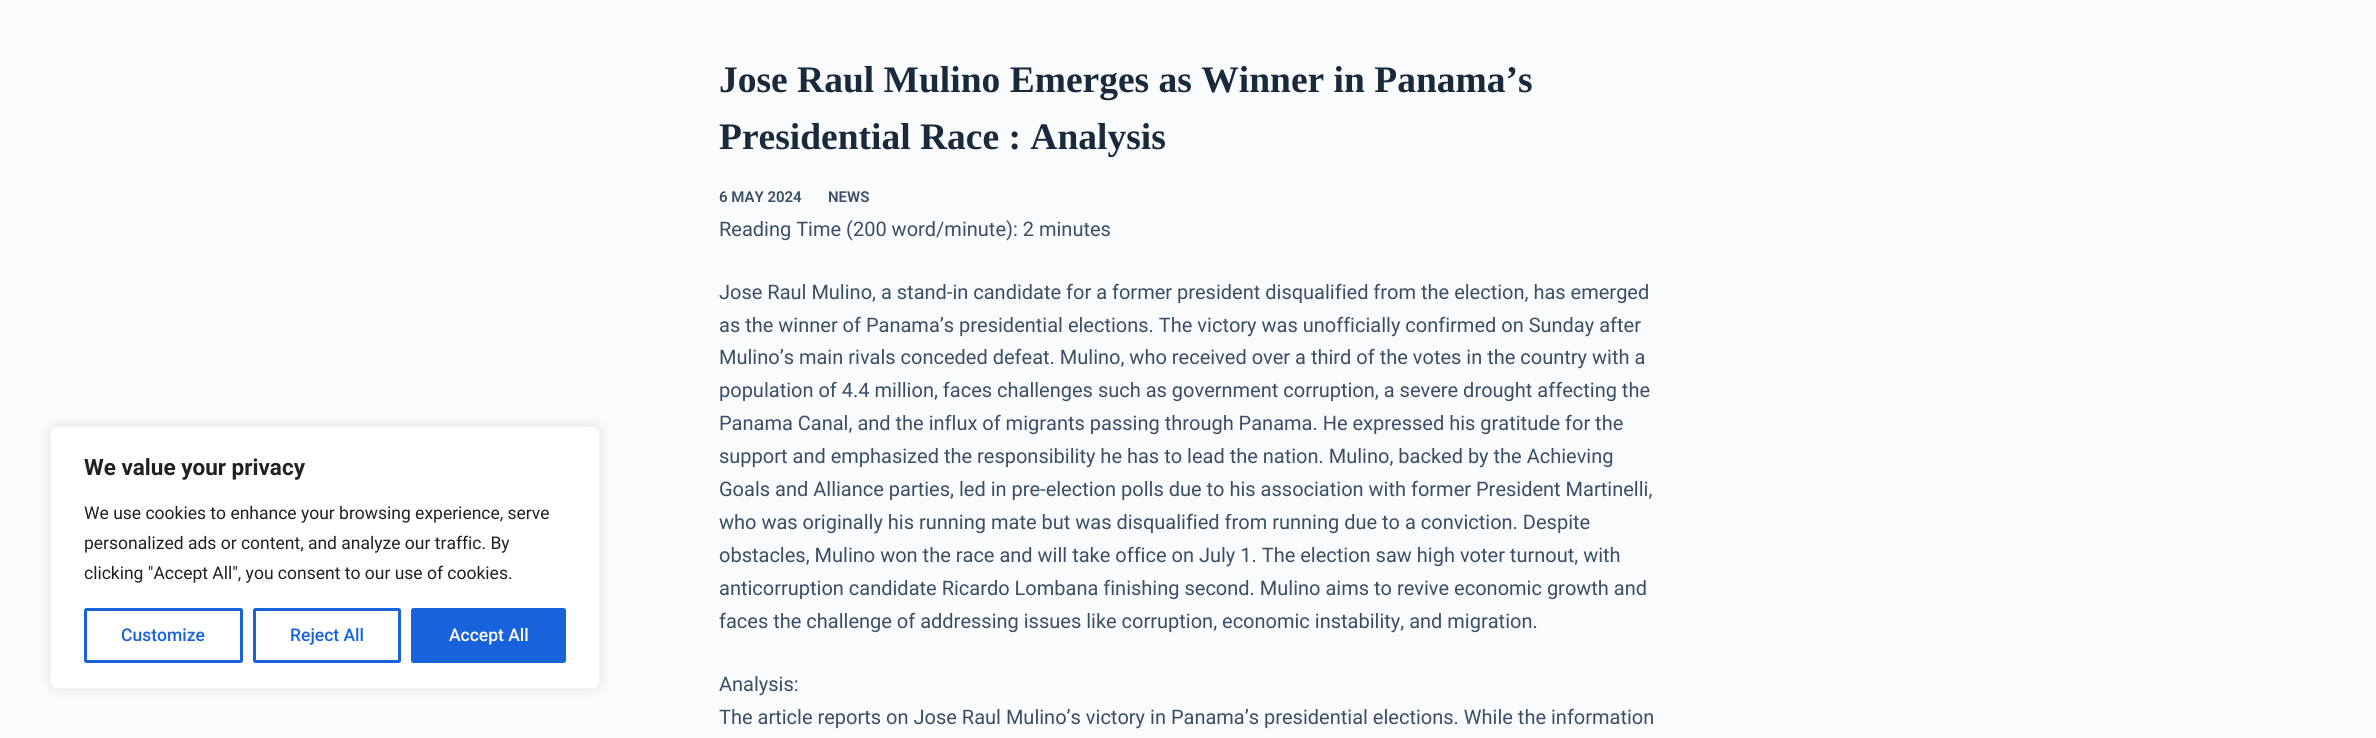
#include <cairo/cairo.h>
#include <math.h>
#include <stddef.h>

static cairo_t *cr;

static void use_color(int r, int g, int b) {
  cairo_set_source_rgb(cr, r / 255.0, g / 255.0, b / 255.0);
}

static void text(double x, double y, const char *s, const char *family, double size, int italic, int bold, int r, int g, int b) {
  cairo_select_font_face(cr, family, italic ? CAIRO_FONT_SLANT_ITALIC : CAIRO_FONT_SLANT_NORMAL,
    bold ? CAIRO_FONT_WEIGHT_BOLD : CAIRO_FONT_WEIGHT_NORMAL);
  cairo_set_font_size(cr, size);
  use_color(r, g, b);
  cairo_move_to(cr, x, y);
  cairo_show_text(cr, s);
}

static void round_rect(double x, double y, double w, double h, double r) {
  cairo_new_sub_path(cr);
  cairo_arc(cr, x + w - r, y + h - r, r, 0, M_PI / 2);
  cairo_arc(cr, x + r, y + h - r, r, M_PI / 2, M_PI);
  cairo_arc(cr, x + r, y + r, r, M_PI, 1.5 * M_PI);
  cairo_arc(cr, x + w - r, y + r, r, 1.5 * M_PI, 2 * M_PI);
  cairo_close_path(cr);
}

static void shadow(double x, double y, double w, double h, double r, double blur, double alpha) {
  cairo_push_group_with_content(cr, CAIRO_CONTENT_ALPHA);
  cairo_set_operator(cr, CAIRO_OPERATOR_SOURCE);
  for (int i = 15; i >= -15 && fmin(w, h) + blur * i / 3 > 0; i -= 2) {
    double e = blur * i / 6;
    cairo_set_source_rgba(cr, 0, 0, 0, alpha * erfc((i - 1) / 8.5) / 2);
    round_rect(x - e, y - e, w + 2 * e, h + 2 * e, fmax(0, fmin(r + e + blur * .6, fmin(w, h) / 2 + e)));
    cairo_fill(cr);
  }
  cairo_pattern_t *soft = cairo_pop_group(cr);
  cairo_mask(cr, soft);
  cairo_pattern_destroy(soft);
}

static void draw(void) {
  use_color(250, 251, 252);
  cairo_paint(cr);
  use_color(172, 171, 171);
  shadow(50, 425, 550, 263, 8, 6, 0.3);
  use_color(255, 255, 255);
  round_rect(50.5, 426.5, 549, 262, 7.5);
  cairo_fill_preserve(cr);
  use_color(244, 244, 244);
  cairo_set_line_width(cr, 1);
  cairo_stroke(cr);
  round_rect(85.5, 609.5, 156, 52, 1);
  use_color(24, 99, 220);
  cairo_set_line_width(cr, 3);
  cairo_stroke(cr);
  round_rect(254.5, 609.5, 145, 52, 1);
  cairo_stroke(cr);
  round_rect(412.5, 609.5, 152, 52, 1);
  cairo_fill_preserve(cr);
  cairo_stroke(cr);
  text(84, 475, "We value your privacy", "Roboto", 22.5, 0, 1, 33, 33, 33);
  text(84, 519, "We use cookies to enhance your browsing experience, serve", "Roboto", 17.5, 0, 0, 33, 33, 33);
  text(84, 549, "personalized ads or content, and analyze our traffic. By", "Roboto", 17.5, 0, 0, 33, 33, 33);
  text(84, 579, "clicking \"Accept All\", you consent to our use of cookies.", "Roboto", 17.5, 0, 0, 33, 33, 33);
  text(121, 641, "Customize", "Roboto Medium", 17.5, 0, 0, 24, 99, 220);
  text(290, 641, "Reject All", "Roboto Medium", 17.5, 0, 0, 24, 99, 220);
  text(449, 641, "Accept All", "Roboto Medium", 17.5, 0, 0, 255, 255, 255);
  text(719, 92, "Jose Raul Mulino Emerges as Winner in Panama’s", "Liberation Serif", 37.5, 0, 1, 25, 42, 61);
  text(719, 149, "Presidential Race : Analysis", "Liberation Serif", 37.5, 0, 1, 25, 42, 61);
  text(719, 202, "6 MAY 2024", "Roboto SemiBold", 15, 0, 0, 58, 79, 102);
  text(828, 202, "NEWS", "Roboto SemiBold", 15, 0, 0, 58, 79, 102);
  text(719, 236, "Reading Time (200 word/minute): 2 minutes", "Roboto", 20, 0, 0, 58, 79, 102);
  text(719, 299, "Jose Raul Mulino, a stand-in candidate for a former president disqualified from the election, has emerged", "Roboto", 20, 0, 0, 58, 79, 102);
  text(719, 332, "as the winner of Panama’s presidential elections. The victory was unofficially confirmed on Sunday after", "Roboto", 20, 0, 0, 58, 79, 102);
  text(719, 364, "Mulino’s main rivals conceded defeat. Mulino, who received over a third of the votes in the country with a", "Roboto", 20, 0, 0, 58, 79, 102);
  text(719, 397, "population of 4.4 million, faces challenges such as government corruption, a severe drought affecting the", "Roboto", 20, 0, 0, 58, 79, 102);
  text(719, 430, "Panama Canal, and the influx of migrants passing through Panama. He expressed his gratitude for the", "Roboto", 20, 0, 0, 58, 79, 102);
  text(719, 463, "support and emphasized the responsibility he has to lead the nation. Mulino, backed by the Achieving", "Roboto", 20, 0, 0, 58, 79, 102);
  text(719, 496, "Goals and Alliance parties, led in pre-election polls due to his association with former President Martinelli,", "Roboto", 20, 0, 0, 58, 79, 102);
  text(719, 529, "who was originally his running mate but was disqualified from running due to a conviction. Despite", "Roboto", 20, 0, 0, 58, 79, 102);
  text(719, 562, "obstacles, Mulino won the race and will take office on July 1. The election saw high voter turnout, with", "Roboto", 20, 0, 0, 58, 79, 102);
  text(719, 595, "anticorruption candidate Ricardo Lombana finishing second. Mulino aims to revive economic growth and", "Roboto", 20, 0, 0, 58, 79, 102);
  text(719, 628, "faces the challenge of addressing issues like corruption, economic instability, and migration.", "Roboto", 20, 0, 0, 58, 79, 102);
  text(719, 691, "Analysis:", "Roboto", 20, 0, 0, 58, 79, 102);
  text(719, 724, "The article reports on Jose Raul Mulino’s victory in Panama’s presidential elections. While the information", "Roboto", 20, 0, 0, 58, 79, 102);
}

int main(void) {
  cairo_surface_t *surface = cairo_image_surface_create(CAIRO_FORMAT_RGB24, 2376, 738);
  cr = cairo_create(surface);
  cairo_font_options_t *options = cairo_font_options_create();
  cairo_font_options_set_hint_metrics(options, CAIRO_HINT_METRICS_OFF);
  cairo_font_options_set_hint_style(options, CAIRO_HINT_STYLE_NONE);
  cairo_set_font_options(cr, options);
  cairo_set_miter_limit(cr, 4);
  draw();
  cairo_surface_write_to_png(surface, "out.png");
  cairo_font_options_destroy(options);
  cairo_destroy(cr);
  cairo_surface_destroy(surface);
  return 0;
}
